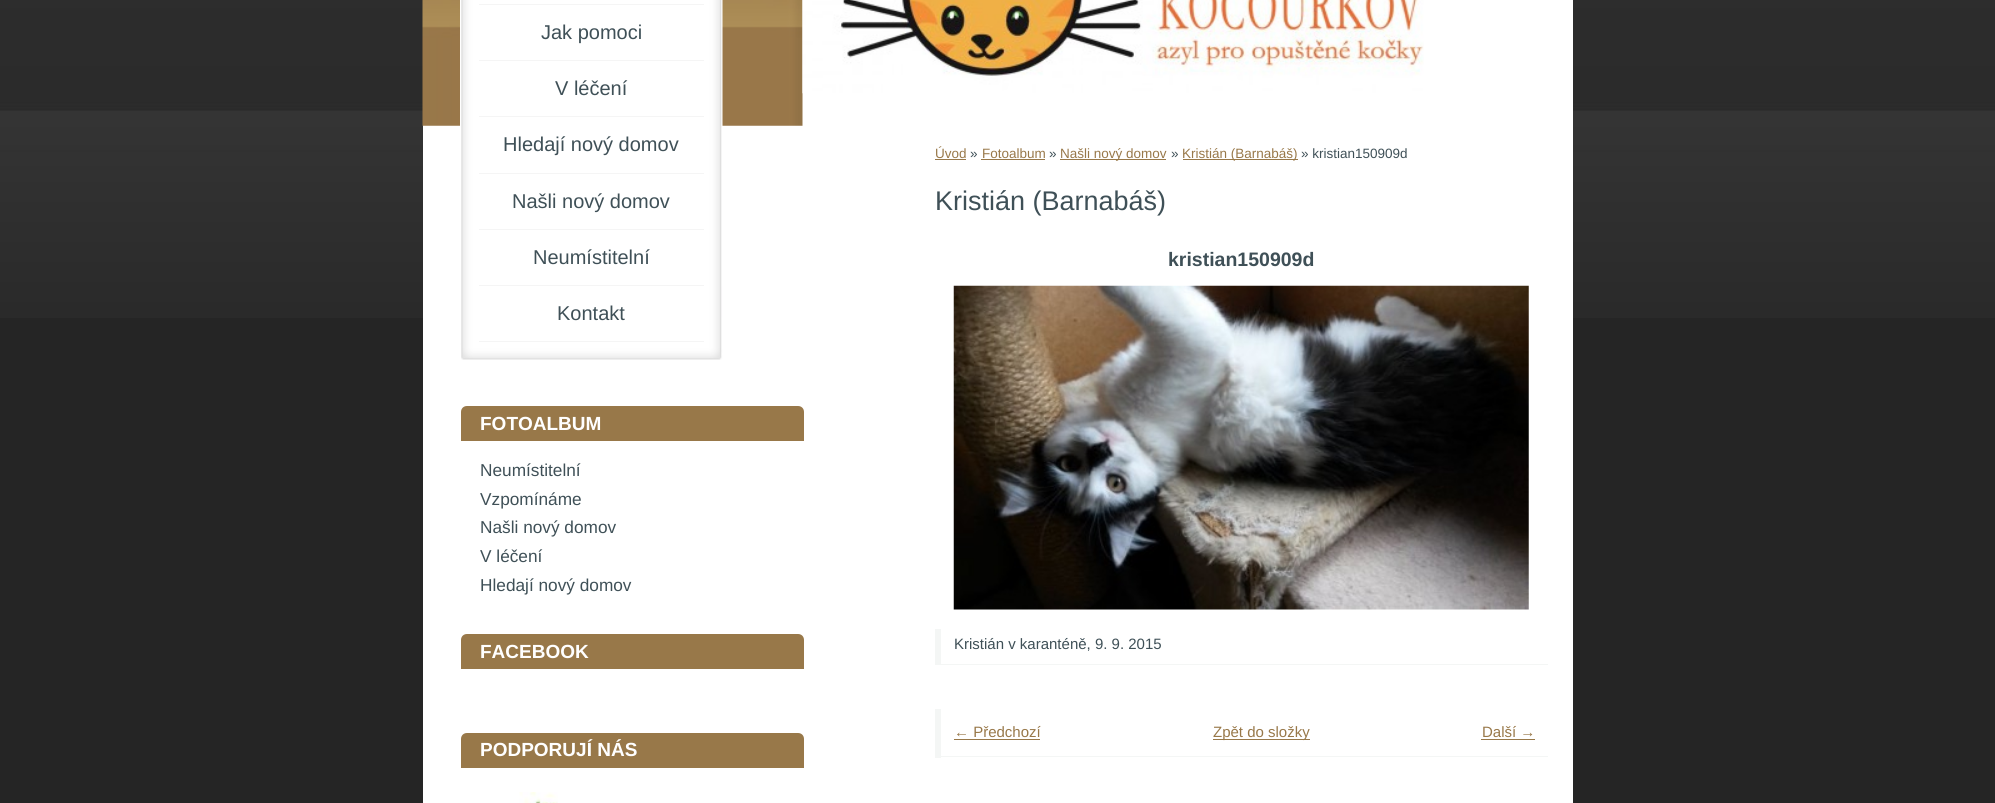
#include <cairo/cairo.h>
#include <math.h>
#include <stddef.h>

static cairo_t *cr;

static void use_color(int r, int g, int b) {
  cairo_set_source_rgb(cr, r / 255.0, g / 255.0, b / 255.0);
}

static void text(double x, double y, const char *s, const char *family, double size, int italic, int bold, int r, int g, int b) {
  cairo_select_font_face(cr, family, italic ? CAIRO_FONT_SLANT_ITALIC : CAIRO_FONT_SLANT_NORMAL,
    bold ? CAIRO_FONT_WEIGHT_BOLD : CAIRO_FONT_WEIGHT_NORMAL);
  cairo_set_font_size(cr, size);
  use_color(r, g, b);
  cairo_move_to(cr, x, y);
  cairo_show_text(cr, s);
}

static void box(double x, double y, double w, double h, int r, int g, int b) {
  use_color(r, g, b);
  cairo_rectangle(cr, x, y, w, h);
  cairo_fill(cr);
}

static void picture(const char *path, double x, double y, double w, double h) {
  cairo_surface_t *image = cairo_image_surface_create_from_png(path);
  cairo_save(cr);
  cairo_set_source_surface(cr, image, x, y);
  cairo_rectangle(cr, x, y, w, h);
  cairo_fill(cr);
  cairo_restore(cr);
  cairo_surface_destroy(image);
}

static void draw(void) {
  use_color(37, 37, 37);
  cairo_paint(cr);
  picture("img_01.png", 0, 0, 1995, 318);
  box(423, 0, 1150, 803, 255, 255, 255);
  picture("img_02.png", 422, 0, 381, 126);
  picture("img_03.png", 802, 0, 622, 94);
  picture("img_04.png", 460, 0, 263, 360);
  box(479, 4, 225, 1, 245, 245, 245);
  box(479, 60, 225, 1, 245, 245, 245);
  box(479, 116, 225, 1, 245, 245, 245);
  box(479, 173, 225, 1, 245, 245, 245);
  box(479, 229, 225, 1, 245, 245, 245);
  box(479, 285, 225, 1, 245, 245, 245);
  box(479, 341, 225, 1, 245, 245, 245);
  use_color(152, 120, 73);
  cairo_new_path(cr);
  cairo_move_to(cr, 467, 406);
  cairo_line_to(cr, 798, 406);
  cairo_curve_to(cr, 801.5, 406, 804, 408.5, 804, 412);
  cairo_line_to(cr, 804, 441);
  cairo_line_to(cr, 461, 441);
  cairo_line_to(cr, 461, 412);
  cairo_curve_to(cr, 461, 408.5, 463.5, 406, 467, 406);
  cairo_close_path(cr);
  cairo_fill(cr);
  cairo_new_path(cr);
  cairo_move_to(cr, 467, 634);
  cairo_line_to(cr, 798, 634);
  cairo_curve_to(cr, 801.5, 634, 804, 636.5, 804, 640);
  cairo_line_to(cr, 804, 669);
  cairo_line_to(cr, 461, 669);
  cairo_line_to(cr, 461, 640);
  cairo_curve_to(cr, 461, 636.5, 463.5, 634, 467, 634);
  cairo_close_path(cr);
  cairo_fill(cr);
  cairo_new_path(cr);
  cairo_move_to(cr, 467, 733);
  cairo_line_to(cr, 798, 733);
  cairo_curve_to(cr, 801.5, 733, 804, 735.5, 804, 739);
  cairo_line_to(cr, 804, 768);
  cairo_line_to(cr, 461, 768);
  cairo_line_to(cr, 461, 739);
  cairo_curve_to(cr, 461, 735.5, 463.5, 733, 467, 733);
  cairo_close_path(cr);
  cairo_fill(cr);
  picture("img_05.png", 519, 792, 39, 11);
  box(935, 159, 31, 1, 152, 120, 73);
  box(981, 159, 64, 1, 152, 120, 73);
  box(1060, 159, 106, 1, 152, 120, 73);
  box(1183, 159, 115, 1, 152, 120, 73);
  picture("img_06.png", 953, 285, 576, 325);
  box(935, 664, 613, 1, 244, 246, 245);
  box(935, 629, 6, 36, 244, 246, 245);
  box(935, 756, 613, 1, 244, 246, 245);
  box(935, 709, 6, 49, 244, 246, 245);
  box(954, 739, 86, 1, 152, 120, 73);
  box(1213, 739, 97, 1, 152, 120, 73);
  box(1481, 739, 54, 1, 152, 120, 73);
  text(541, 39, "Jak pomoci", "Liberation Sans", 20, 0, 0, 63, 80, 87);
  text(555, 95, "V léčení", "Liberation Sans", 20, 0, 0, 63, 80, 87);
  text(503, 151, "Hledají nový domov", "Liberation Sans", 20, 0, 0, 63, 80, 87);
  text(512, 208, "Našli nový domov", "Liberation Sans", 20, 0, 0, 63, 80, 87);
  text(533, 264, "Neumístitelní", "Liberation Sans", 20, 0, 0, 63, 80, 87);
  text(557, 320, "Kontakt", "Liberation Sans", 20, 0, 0, 63, 80, 87);
  text(480, 430, "FOTOALBUM", "Liberation Sans", 19, 0, 1, 255, 255, 255);
  text(480, 476, "Neumístitelní", "Liberation Sans", 17.25, 0, 0, 63, 80, 87);
  text(480, 505, "Vzpomínáme", "Liberation Sans", 17.25, 0, 0, 63, 80, 87);
  text(480, 533, "Našli nový domov", "Liberation Sans", 17.25, 0, 0, 63, 80, 87);
  text(480, 562, "V léčení", "Liberation Sans", 17.25, 0, 0, 63, 80, 87);
  text(480, 591, "Hledají nový domov", "Liberation Sans", 17.25, 0, 0, 63, 80, 87);
  text(480, 658, "FACEBOOK", "Liberation Sans", 19, 0, 1, 255, 255, 255);
  text(480, 756, "PODPORUJÍ NÁS", "Liberation Sans", 19, 0, 1, 255, 255, 255);
  text(935, 158, "Úvod", "Liberation Sans", 13.5, 0, 0, 152, 120, 73);
  text(970, 158, "»", "Liberation Sans", 13.5, 0, 0, 63, 80, 87);
  text(982, 158, "Fotoalbum", "Liberation Sans", 13.5, 0, 0, 152, 120, 73);
  text(1049, 158, "»", "Liberation Sans", 13.5, 0, 0, 63, 80, 87);
  text(1060, 158, "Našli nový domov", "Liberation Sans", 13.5, 0, 0, 152, 120, 73);
  text(1171, 158, "»", "Liberation Sans", 13.5, 0, 0, 63, 80, 87);
  text(1182, 158, "Kristián (Barnabáš)", "Liberation Sans", 13.5, 0, 0, 152, 120, 73);
  text(1301, 158, "» kristian150909d", "Liberation Sans", 13.5, 0, 0, 63, 80, 87);
  text(935, 210, "Kristián (Barnabáš)", "Liberation Sans", 27, 0, 0, 63, 80, 87);
  text(1168, 266, "kristian150909d", "Liberation Sans", 19.5, 0, 1, 63, 80, 87);
  text(954, 649, "Kristián v karanténě, 9. 9. 2015", "Liberation Sans", 15, 0, 0, 63, 80, 87);
  text(954, 737, "← Předchozí", "Liberation Sans", 15, 0, 0, 152, 120, 73);
  text(1213, 737, "Zpět do složky", "Liberation Sans", 15, 0, 0, 152, 120, 73);
  text(1482, 737, "Další →", "Liberation Sans", 15, 0, 0, 152, 120, 73);
}

int main(void) {
  cairo_surface_t *surface = cairo_image_surface_create(CAIRO_FORMAT_RGB24, 1995, 803);
  cr = cairo_create(surface);
  cairo_font_options_t *options = cairo_font_options_create();
  cairo_font_options_set_hint_metrics(options, CAIRO_HINT_METRICS_OFF);
  cairo_font_options_set_hint_style(options, CAIRO_HINT_STYLE_NONE);
  cairo_set_font_options(cr, options);
  cairo_set_miter_limit(cr, 4);
  draw();
  cairo_surface_write_to_png(surface, "out.png");
  cairo_font_options_destroy(options);
  cairo_destroy(cr);
  cairo_surface_destroy(surface);
  return 0;
}
